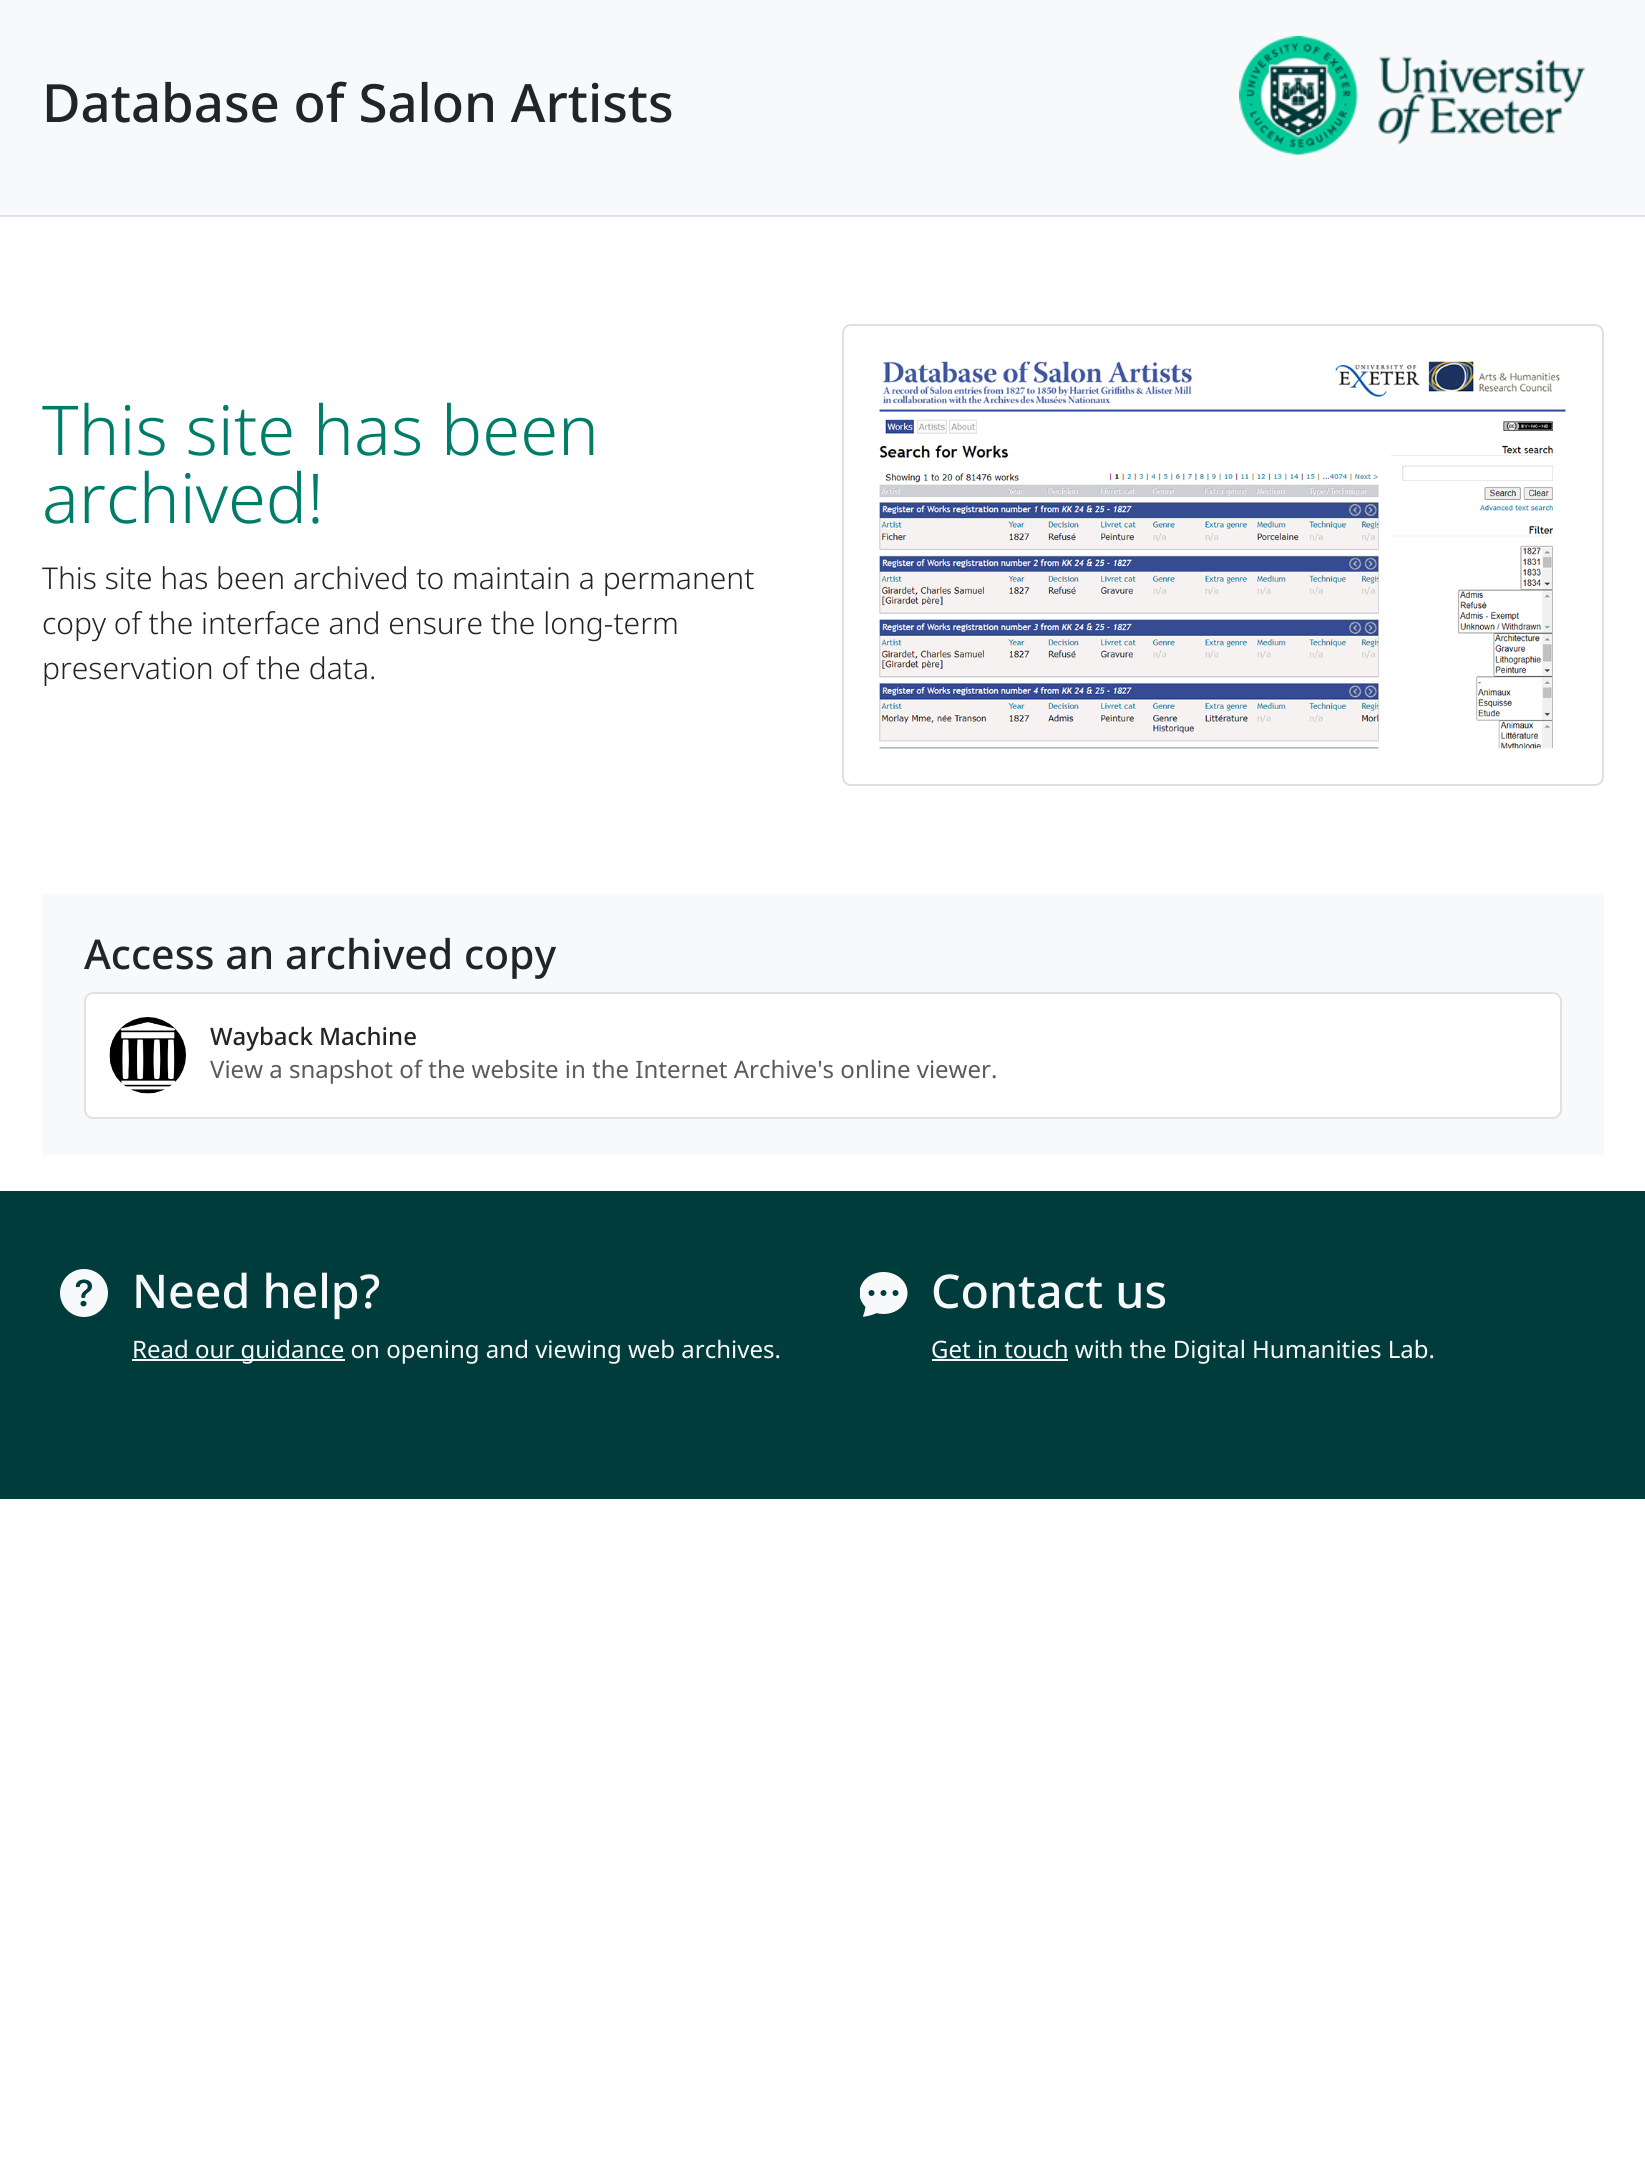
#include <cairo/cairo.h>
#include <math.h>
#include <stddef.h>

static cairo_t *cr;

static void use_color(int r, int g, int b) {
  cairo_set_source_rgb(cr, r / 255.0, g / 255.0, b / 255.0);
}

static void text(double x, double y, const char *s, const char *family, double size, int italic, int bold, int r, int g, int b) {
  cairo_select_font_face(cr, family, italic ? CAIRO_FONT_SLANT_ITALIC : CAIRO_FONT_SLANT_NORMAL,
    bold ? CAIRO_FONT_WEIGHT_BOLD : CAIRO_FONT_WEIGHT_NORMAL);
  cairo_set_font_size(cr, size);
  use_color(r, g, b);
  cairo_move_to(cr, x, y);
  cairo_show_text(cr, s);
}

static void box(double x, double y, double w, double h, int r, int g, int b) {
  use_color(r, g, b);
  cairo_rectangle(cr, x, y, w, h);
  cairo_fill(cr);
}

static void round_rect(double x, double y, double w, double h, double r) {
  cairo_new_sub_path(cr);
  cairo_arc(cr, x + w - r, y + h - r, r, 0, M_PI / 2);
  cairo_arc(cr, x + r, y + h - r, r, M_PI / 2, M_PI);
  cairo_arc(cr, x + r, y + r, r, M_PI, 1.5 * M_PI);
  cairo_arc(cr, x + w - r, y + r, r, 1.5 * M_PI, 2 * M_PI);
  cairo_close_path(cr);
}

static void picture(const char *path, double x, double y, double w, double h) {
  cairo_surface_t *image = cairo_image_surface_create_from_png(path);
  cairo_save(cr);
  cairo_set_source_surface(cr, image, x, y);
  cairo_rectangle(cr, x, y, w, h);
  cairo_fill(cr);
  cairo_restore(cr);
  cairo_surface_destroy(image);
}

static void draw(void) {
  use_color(255, 255, 255);
  cairo_paint(cr);
  box(0, 0, 1645, 215, 248, 249, 250);
  box(0, 215, 1645, 2, 222, 226, 230);
  picture("img_01.png", 1239, 36, 347, 119);
  round_rect(843, 325, 760, 460, 8);
  use_color(223, 223, 223);
  cairo_stroke(cr);
  picture("img_02.png", 879, 361, 687, 388);
  box(42, 894, 1562, 261, 248, 249, 250);
  use_color(255, 255, 255);
  round_rect(84, 992, 1478, 127, 9);
  cairo_fill(cr);
  round_rect(85, 993, 1476, 125, 8);
  cairo_set_source_rgba(cr, 0, 0, 0, 0.12);
  cairo_stroke(cr);
  picture("img_03.png", 109, 1017, 77, 77);
  box(0, 1191, 1645, 308, 0, 60, 60);
  picture("img_04.png", 60, 1269, 48, 48);
  box(132, 1359, 213, 2, 248, 249, 250);
  picture("img_05.png", 860, 1272, 48, 45);
  box(932, 1359, 136, 2, 248, 249, 250);
  text(42, 122, "Database of Salon Artists", "Noto Sans Medium", 52.75, 0, 0, 33, 37, 41);
  text(42, 455, "This site has been", "Noto Sans Light", 68.75, 0, 0, 0, 125, 105);
  text(42, 523, "archived!", "Noto Sans Light", 68.75, 0, 0, 0, 125, 105);
  text(42, 589, "This site has been archived to maintain a permanent", "Noto Sans Light", 30, 0, 0, 33, 37, 41);
  text(42, 634, "copy of the interface and ensure the long-term", "Noto Sans Light", 30, 0, 0, 33, 37, 41);
  text(42, 679, "preservation of the data.", "Noto Sans Light", 30, 0, 0, 33, 37, 41);
  text(84, 969, "Access an archived copy", "Noto Sans Medium", 41, 0, 0, 33, 37, 41);
  text(210, 1045, "Wayback Machine", "Noto Sans Medium", 24, 0, 0, 33, 37, 41);
  text(210, 1078, "View a snapshot of the website in the Internet Archive's online viewer.", "Noto Sans", 24, 0, 0, 89, 92, 95);
  text(132, 1308, "Need help?", "Noto Sans Medium", 46.5, 0, 0, 248, 249, 250);
  text(132, 1358, "Read our guidance on opening and viewing web archives.", "Noto Sans", 24, 0, 0, 248, 249, 250);
  text(931, 1308, "Contact us", "Noto Sans Medium", 46.5, 0, 0, 248, 249, 250);
  text(931, 1358, "Get in touch with the Digital Humanities Lab.", "Noto Sans", 24, 0, 0, 248, 249, 250);
}

int main(void) {
  cairo_surface_t *surface = cairo_image_surface_create(CAIRO_FORMAT_RGB24, 1645, 2157);
  cr = cairo_create(surface);
  cairo_font_options_t *options = cairo_font_options_create();
  cairo_font_options_set_hint_metrics(options, CAIRO_HINT_METRICS_OFF);
  cairo_font_options_set_hint_style(options, CAIRO_HINT_STYLE_NONE);
  cairo_set_font_options(cr, options);
  cairo_set_miter_limit(cr, 4);
  draw();
  cairo_surface_write_to_png(surface, "out.png");
  cairo_font_options_destroy(options);
  cairo_destroy(cr);
  cairo_surface_destroy(surface);
  return 0;
}
